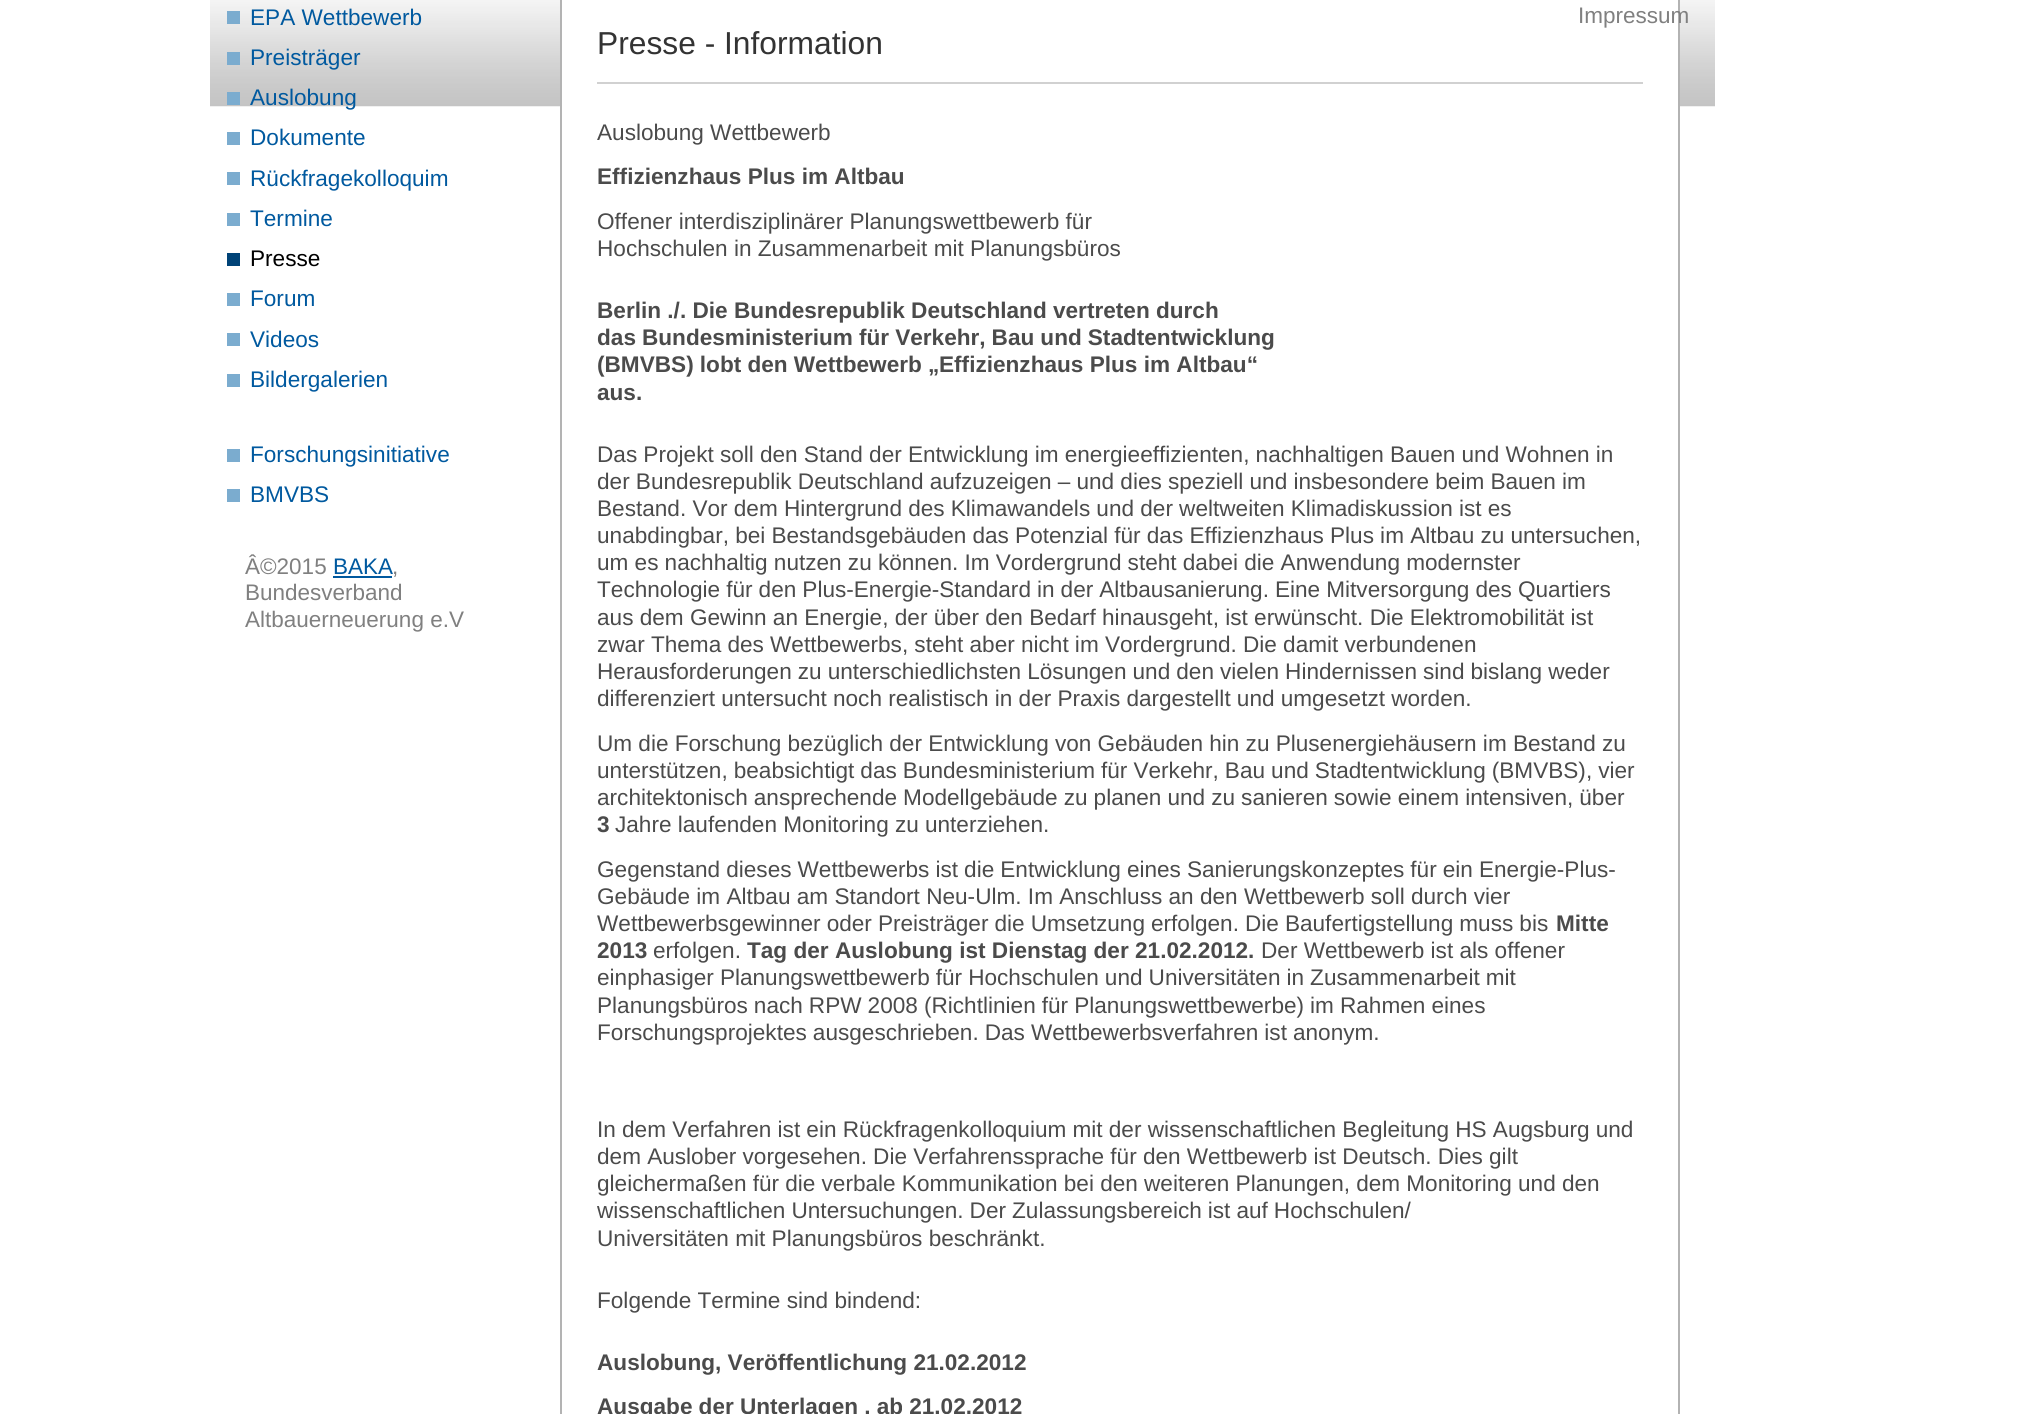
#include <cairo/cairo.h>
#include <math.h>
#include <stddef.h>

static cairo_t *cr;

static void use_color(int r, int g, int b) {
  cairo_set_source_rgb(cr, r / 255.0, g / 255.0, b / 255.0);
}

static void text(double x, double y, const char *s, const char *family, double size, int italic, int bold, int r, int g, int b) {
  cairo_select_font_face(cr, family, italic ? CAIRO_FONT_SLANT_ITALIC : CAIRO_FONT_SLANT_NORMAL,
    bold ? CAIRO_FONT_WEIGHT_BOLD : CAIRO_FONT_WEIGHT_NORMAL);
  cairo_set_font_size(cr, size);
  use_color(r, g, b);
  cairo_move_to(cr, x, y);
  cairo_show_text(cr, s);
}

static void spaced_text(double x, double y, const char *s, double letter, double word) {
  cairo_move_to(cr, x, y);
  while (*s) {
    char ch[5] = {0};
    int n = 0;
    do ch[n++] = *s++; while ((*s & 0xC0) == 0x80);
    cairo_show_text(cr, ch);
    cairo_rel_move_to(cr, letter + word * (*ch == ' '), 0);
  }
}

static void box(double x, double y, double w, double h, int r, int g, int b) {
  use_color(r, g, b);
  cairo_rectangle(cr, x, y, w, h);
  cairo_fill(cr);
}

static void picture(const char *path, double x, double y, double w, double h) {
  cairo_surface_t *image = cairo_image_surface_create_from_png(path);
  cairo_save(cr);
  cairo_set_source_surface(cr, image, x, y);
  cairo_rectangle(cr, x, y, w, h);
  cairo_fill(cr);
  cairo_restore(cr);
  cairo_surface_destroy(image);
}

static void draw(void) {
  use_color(255, 255, 255);
  cairo_paint(cr);
  picture("img_01.png", 210, 0, 1505, 107);
  box(333, 576, 59, 2, 0, 89, 159);
  box(227, 11, 13, 13, 123, 172, 207);
  box(227, 52, 13, 13, 123, 172, 207);
  box(227, 92, 13, 13, 123, 172, 207);
  box(227, 132, 13, 13, 123, 172, 207);
  box(227, 172, 13, 13, 123, 172, 207);
  box(227, 213, 13, 13, 123, 172, 207);
  box(227, 253, 13, 13, 0, 67, 119);
  box(227, 293, 13, 13, 123, 172, 207);
  box(227, 333, 13, 13, 123, 172, 207);
  box(227, 374, 13, 13, 123, 172, 207);
  box(227, 449, 13, 13, 123, 172, 207);
  box(227, 489, 13, 13, 123, 172, 207);
  box(562, 0, 1116, 107, 255, 255, 255);
  cairo_rectangle(cr, 561, -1, 1118, 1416);
  use_color(179, 179, 179);
  cairo_stroke(cr);
  box(597, 82, 1046, 2, 209, 209, 209);
  text(1578, 23, "Impressum", "Liberation Sans", 22.5, 0, 0, 128, 128, 128);
  text(245, 574, "Â©2015", "Liberation Sans", 22.5, 0, 0, 128, 128, 128);
  text(333, 574, "BAKA", "Liberation Sans", 22.5, 0, 0, 0, 89, 159);
  text(392, 574, ",", "Liberation Sans", 22.5, 0, 0, 128, 128, 128);
  text(245, 600, "Bundesverband", "Liberation Sans", 22.5, 0, 0, 128, 128, 128);
  text(245, 627, "Altbauerneuerung e.V", "Liberation Sans", 22.5, 0, 0, 128, 128, 128);
  text(250, 25, "EPA Wettbewerb", "Liberation Sans", 22.6, 0, 0, 0, 89, 159);
  text(250, 65, "Preisträger", "Liberation Sans", 22.6, 0, 0, 0, 89, 159);
  text(250, 105, "Auslobung", "Liberation Sans", 22.6, 0, 0, 0, 89, 159);
  text(250, 145, "Dokumente", "Liberation Sans", 22.6, 0, 0, 0, 89, 159);
  text(250, 186, "Rückfragekolloquim", "Liberation Sans", 22.6, 0, 0, 0, 89, 159);
  text(250, 226, "Termine", "Liberation Sans", 22.6, 0, 0, 0, 89, 159);
  text(250, 266, "Presse", "Liberation Sans", 22.6, 0, 0, 0, 0, 0);
  text(250, 306, "Forum", "Liberation Sans", 22.6, 0, 0, 0, 89, 159);
  text(250, 347, "Videos", "Liberation Sans", 22.6, 0, 0, 0, 89, 159);
  text(250, 387, "Bildergalerien", "Liberation Sans", 22.6, 0, 0, 0, 89, 159);
  text(250, 462, "Forschungsinitiative", "Liberation Sans", 22.6, 0, 0, 0, 89, 159);
  text(250, 502, "BMVBS", "Liberation Sans", 22.6, 0, 0, 0, 89, 159);
  text(597, 54, "Presse - Information", "Liberation Sans", 31.75, 0, 0, 51, 51, 51);
  text(597, 140, "Auslobung Wettbewerb", "Liberation Sans", 22.6, 0, 0, 75, 75, 75);
  text(597, 184, "Effizienzhaus Plus im Altbau", "Liberation Sans", 22.6, 0, 1, 75, 75, 75);
  text(597, 229, "Offener interdisziplinärer Planungswettbewerb für", "Liberation Sans", 22.6, 0, 0, 75, 75, 75);
  text(597, 256, "Hochschulen in Zusammenarbeit mit Planungsbüros", "Liberation Sans", 22.6, 0, 0, 75, 75, 75);
  text(597, 318, "Berlin ./. Die", "Liberation Sans", 22.6, 0, 1, 75, 75, 75);
  text(734, 318, "Bundesrepublik Deutschland vertreten durch", "Liberation Sans", 22.6, 0, 1, 75, 75, 75);
  spaced_text(597, 345, "das Bundesministerium für Verkehr, Bau und Stadtentwicklung", 0, -0.25);
  spaced_text(597, 372, "(BMVBS) lobt den Wettbewerb „", 0, -0.1);
  text(939, 372, "Effizienzhaus Plus im Altbau“", "Liberation Sans", 22.6, 0, 1, 75, 75, 75);
  text(597, 400, "aus.", "Liberation Sans", 22.6, 0, 1, 75, 75, 75);
  cairo_select_font_face(cr, "Liberation Sans", CAIRO_FONT_SLANT_NORMAL, CAIRO_FONT_WEIGHT_NORMAL);
  spaced_text(597, 462, "Das Projekt soll den Stand der Entwicklung im energieeffizienten, nachhaltigen Bauen und Wohnen in", 0, -0.1);
  spaced_text(597, 489, "der Bundesrepublik Deutschland aufzuzeigen – und dies speziell und insbesondere beim Bauen im", 0, -0.1);
  spaced_text(597, 516, "Bestand. Vor dem Hintergrund des Klimawandels und der weltweiten Klimadiskussion ist es", 0, -0.1);
  spaced_text(597, 543, "unabdingbar, bei Bestandsgebäuden das Potenzial für das Effizienzhaus Plus im Altbau zu untersuchen,", 0, -0.1);
  spaced_text(597, 570, "um es nachhaltig nutzen zu können. Im Vordergrund steht dabei die Anwendung modernster", 0, -0.1);
  spaced_text(597, 597, "Technologie für den Plus-Energie-Standard in der Altbausanierung. Eine Mitversorgung des Quartiers", 0, -0.25);
  text(597, 625, "aus dem Gewinn an Energie, der über den Bedarf hinausgeht, ist erwünscht. Die Elektromobilität ist", "Liberation Sans", 22.6, 0, 0, 75, 75, 75);
  spaced_text(597, 652, "zwar Thema des Wettbewerbs, steht aber nicht im Vordergrund. Die damit verbundenen", 0, -0.1);
  spaced_text(597, 679, "Herausforderungen zu unterschiedlichsten Lösungen und den vielen Hindernissen sind bislang weder", 0, -0.25);
  spaced_text(597, 706, "differenziert untersucht noch realistisch in der Praxis dargestellt und umgesetzt worden.", 0, -0.1);
  spaced_text(597, 751, "Um die Forschung bezüglich der Entwicklung von Gebäuden hin zu Plusenergiehäusern im Bestand zu", 0, -0.1);
  spaced_text(597, 778, "unterstützen, beabsichtigt das Bundesministerium für Verkehr, Bau und Stadtentwicklung (BMVBS), vier", 0, -0.25);
  spaced_text(597, 805, "architektonisch ansprechende Modellgebäude zu planen und zu sanieren sowie einem intensiven, über", 0, -0.25);
  text(597, 832, "3", "Liberation Sans", 22.6, 0, 1, 75, 75, 75);
  cairo_select_font_face(cr, "Liberation Sans", CAIRO_FONT_SLANT_NORMAL, CAIRO_FONT_WEIGHT_NORMAL);
  spaced_text(615, 832, "Jahre laufenden Monitoring zu unterziehen.", 0, -0.1);
  spaced_text(597, 877, "Gegenstand dieses Wettbewerbs ist die Entwicklung eines Sanierungskonzeptes für ein Energie-Plus-", 0, -0.25);
  text(597, 904, "Gebäude im Altbau am Standort Neu-Ulm. Im Anschluss an den Wettbewerb soll durch vier", "Liberation Sans", 22.6, 0, 0, 75, 75, 75);
  spaced_text(597, 931, "Wettbewerbsgewinner oder Preisträger die Umsetzung erfolgen. Die Baufertigstellung muss bis", 0, -0.25);
  text(1556, 931, "Mitte", "Liberation Sans", 22.6, 0, 1, 75, 75, 75);
  text(597, 958, "2013", "Liberation Sans", 22.6, 0, 1, 75, 75, 75);
  text(653, 958, "erfolgen.", "Liberation Sans", 22.6, 0, 0, 75, 75, 75);
  text(747, 958, "Tag der Auslobung ist Dienstag der 21.02.2012.", "Liberation Sans", 22.6, 0, 1, 75, 75, 75);
  text(1261, 958, "Der Wettbewerb ist als offener", "Liberation Sans", 22.6, 0, 0, 75, 75, 75);
  spaced_text(597, 985, "einphasiger Planungswettbewerb für Hochschulen und Universitäten in Zusammenarbeit mit", 0, -0.25);
  spaced_text(597, 1013, "Planungsbüros nach RPW 2008 (Richtlinien für Planungswettbewerbe) im Rahmen eines", 0, -0.25);
  spaced_text(597, 1040, "Forschungsprojektes ausgeschrieben. Das Wettbewerbsverfahren ist anonym.", 0, -0.25);
  spaced_text(597, 1137, "In dem Verfahren ist ein Rückfragenkolloquium mit der wissenschaftlichen Begleitung HS Augsburg und", 0, -0.1);
  spaced_text(597, 1164, "dem Auslober vorgesehen. Die Verfahrenssprache für den Wettbewerb ist Deutsch. Dies gilt", 0, -0.1);
  spaced_text(597, 1191, "gleichermaßen für die verbale Kommunikation bei den weiteren Planungen, dem Monitoring und den", 0, -0.1);
  spaced_text(597, 1218, "wissenschaftlichen Untersuchungen. Der Zulassungsbereich ist auf Hochschulen/", 0, -0.25);
  text(597, 1246, "Universitäten mit Planungsbüros beschränkt.", "Liberation Sans", 22.6, 0, 0, 75, 75, 75);
  text(597, 1308, "Folgende Termine sind bindend:", "Liberation Sans", 22.6, 0, 0, 75, 75, 75);
  text(597, 1370, "Auslobung, Veröffentlichung 21.02.2012", "Liberation Sans", 22.6, 0, 1, 75, 75, 75);
  spaced_text(597, 1414, "Ausgabe der Unterlagen , ab 21.02.2012", 0, -0.1);
}

int main(void) {
  cairo_surface_t *surface = cairo_image_surface_create(CAIRO_FORMAT_RGB24, 2021, 1414);
  cr = cairo_create(surface);
  cairo_font_options_t *options = cairo_font_options_create();
  cairo_font_options_set_hint_metrics(options, CAIRO_HINT_METRICS_OFF);
  cairo_font_options_set_hint_style(options, CAIRO_HINT_STYLE_NONE);
  cairo_set_font_options(cr, options);
  cairo_set_miter_limit(cr, 4);
  draw();
  cairo_surface_write_to_png(surface, "out.png");
  cairo_font_options_destroy(options);
  cairo_destroy(cr);
  cairo_surface_destroy(surface);
  return 0;
}
